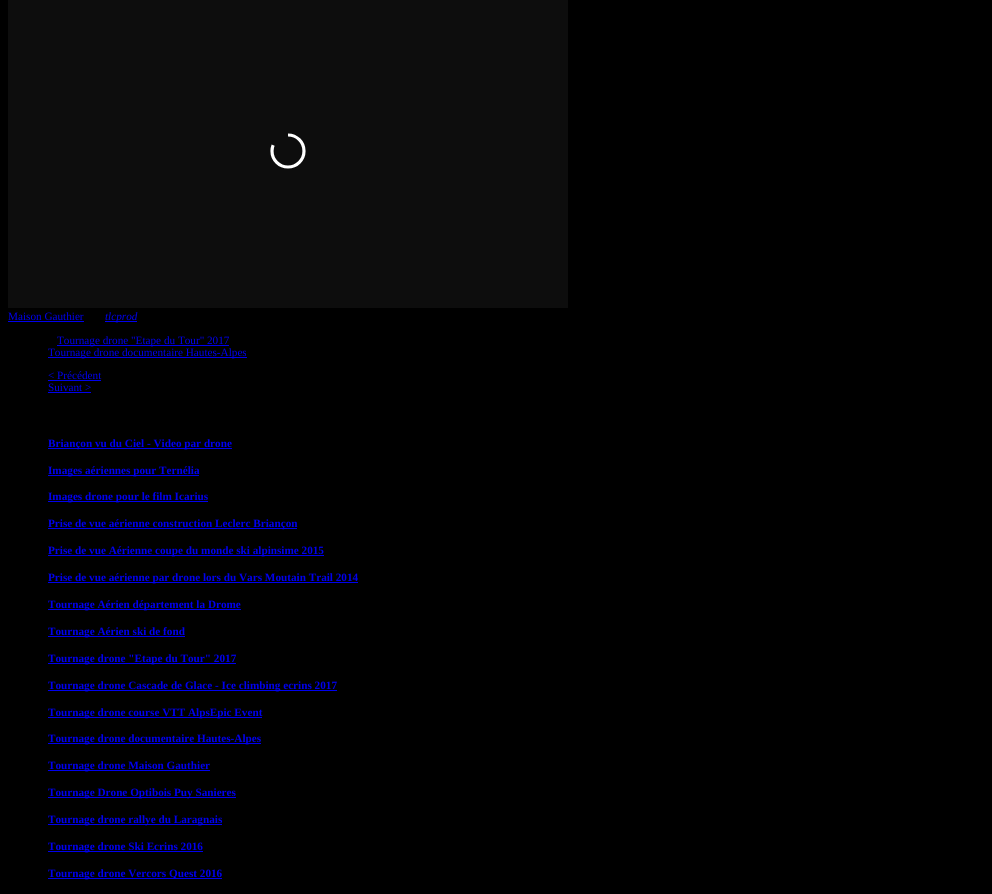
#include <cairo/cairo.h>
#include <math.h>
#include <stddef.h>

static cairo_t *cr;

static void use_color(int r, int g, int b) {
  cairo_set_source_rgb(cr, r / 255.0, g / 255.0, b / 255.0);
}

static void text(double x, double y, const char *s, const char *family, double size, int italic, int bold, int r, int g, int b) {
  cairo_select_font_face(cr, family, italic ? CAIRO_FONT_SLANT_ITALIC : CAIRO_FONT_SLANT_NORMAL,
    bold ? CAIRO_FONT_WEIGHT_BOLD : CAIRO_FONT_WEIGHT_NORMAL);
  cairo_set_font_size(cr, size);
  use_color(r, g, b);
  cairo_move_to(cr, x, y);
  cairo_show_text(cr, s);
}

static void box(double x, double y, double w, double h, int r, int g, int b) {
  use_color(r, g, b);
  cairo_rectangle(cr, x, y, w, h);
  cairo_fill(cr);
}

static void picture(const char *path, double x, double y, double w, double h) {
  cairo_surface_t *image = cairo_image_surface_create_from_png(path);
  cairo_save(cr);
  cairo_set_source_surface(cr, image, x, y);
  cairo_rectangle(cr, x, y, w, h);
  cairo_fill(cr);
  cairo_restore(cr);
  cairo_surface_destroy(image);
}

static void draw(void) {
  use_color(0, 0, 0);
  cairo_paint(cr);
  picture("img_01.png", 8, 0, 560, 308);
  box(8, 321, 76, 1, 0, 0, 238);
  box(105, 321, 32, 1, 0, 0, 238);
  box(57, 345, 172, 1, 0, 0, 238);
  box(48, 357, 199, 1, 0, 0, 238);
  box(48, 380, 53, 1, 0, 0, 238);
  box(48, 392, 43, 1, 0, 0, 238);
  box(48, 448, 184, 1, 0, 0, 238);
  box(48, 475, 151, 1, 0, 0, 238);
  box(48, 501, 160, 1, 0, 0, 238);
  box(48, 528, 249, 1, 0, 0, 238);
  box(48, 555, 276, 1, 0, 0, 238);
  box(48, 582, 310, 1, 0, 0, 238);
  box(48, 609, 193, 1, 0, 0, 238);
  box(48, 636, 137, 1, 0, 0, 238);
  box(48, 663, 188, 1, 0, 0, 238);
  box(48, 690, 289, 1, 0, 0, 238);
  box(48, 717, 214, 1, 0, 0, 238);
  box(48, 743, 213, 1, 0, 0, 238);
  box(48, 770, 162, 1, 0, 0, 238);
  box(48, 797, 188, 1, 0, 0, 238);
  box(48, 824, 174, 1, 0, 0, 238);
  box(48, 851, 155, 1, 0, 0, 238);
  box(48, 878, 174, 1, 0, 0, 238);
  text(8, 320, "Maison Gauthier", "Liberation Serif", 11.2, 0, 0, 0, 0, 238);
  text(105, 320, "tlcprod", "Liberation Serif", 11.2, 1, 0, 0, 0, 238);
  text(57, 344, "Tournage drone \"Etape du Tour\" 2017", "Liberation Serif", 11.2, 0, 0, 0, 0, 238);
  text(48, 356, "Tournage drone documentaire Hautes-Alpes", "Liberation Serif", 11.2, 0, 0, 0, 0, 238);
  text(48, 379, "< Précédent", "Liberation Serif", 11.2, 0, 0, 0, 0, 238);
  text(48, 391, "Suivant >", "Liberation Serif", 11.2, 0, 0, 0, 0, 238);
  text(48, 447, "Briançon vu du Ciel - Video par drone", "Liberation Serif", 11.2, 0, 1, 0, 0, 238);
  text(48, 474, "Images aériennes pour Ternélia", "Liberation Serif", 11.2, 0, 1, 0, 0, 238);
  text(48, 500, "Images drone pour le film Icarius", "Liberation Serif", 11.2, 0, 1, 0, 0, 238);
  text(48, 527, "Prise de vue aérienne construction Leclerc Briançon", "Liberation Serif", 11.2, 0, 1, 0, 0, 238);
  text(48, 554, "Prise de vue Aérienne coupe du monde ski alpinsime 2015", "Liberation Serif", 11.2, 0, 1, 0, 0, 238);
  text(48, 581, "Prise de vue aérienne par drone lors du Vars Moutain Trail 2014", "Liberation Serif", 11.2, 0, 1, 0, 0, 238);
  text(48, 608, "Tournage Aérien département la Drome", "Liberation Serif", 11.2, 0, 1, 0, 0, 238);
  text(48, 635, "Tournage Aérien ski de fond", "Liberation Serif", 11.2, 0, 1, 0, 0, 238);
  text(48, 662, "Tournage drone \"Etape du Tour\" 2017", "Liberation Serif", 11.2, 0, 1, 0, 0, 238);
  text(48, 689, "Tournage drone Cascade de Glace - Ice climbing ecrins 2017", "Liberation Serif", 11.2, 0, 1, 0, 0, 238);
  text(48, 716, "Tournage drone course VTT AlpsEpic Event", "Liberation Serif", 11.2, 0, 1, 0, 0, 238);
  text(48, 742, "Tournage drone documentaire Hautes-Alpes", "Liberation Serif", 11.2, 0, 1, 0, 0, 238);
  text(48, 769, "Tournage drone Maison Gauthier", "Liberation Serif", 11.2, 0, 1, 0, 0, 238);
  text(48, 796, "Tournage Drone Optibois Puy Sanieres", "Liberation Serif", 11.2, 0, 1, 0, 0, 238);
  text(48, 823, "Tournage drone rallye du Laragnais", "Liberation Serif", 11.2, 0, 1, 0, 0, 238);
  text(48, 850, "Tournage drone Ski Ecrins 2016", "Liberation Serif", 11.2, 0, 1, 0, 0, 238);
  text(48, 877, "Tournage drone Vercors Quest 2016", "Liberation Serif", 11.2, 0, 1, 0, 0, 238);
}

int main(void) {
  cairo_surface_t *surface = cairo_image_surface_create(CAIRO_FORMAT_RGB24, 992, 894);
  cr = cairo_create(surface);
  cairo_font_options_t *options = cairo_font_options_create();
  cairo_font_options_set_hint_metrics(options, CAIRO_HINT_METRICS_OFF);
  cairo_font_options_set_hint_style(options, CAIRO_HINT_STYLE_NONE);
  cairo_set_font_options(cr, options);
  cairo_set_miter_limit(cr, 4);
  draw();
  cairo_surface_write_to_png(surface, "out.png");
  cairo_font_options_destroy(options);
  cairo_destroy(cr);
  cairo_surface_destroy(surface);
  return 0;
}
